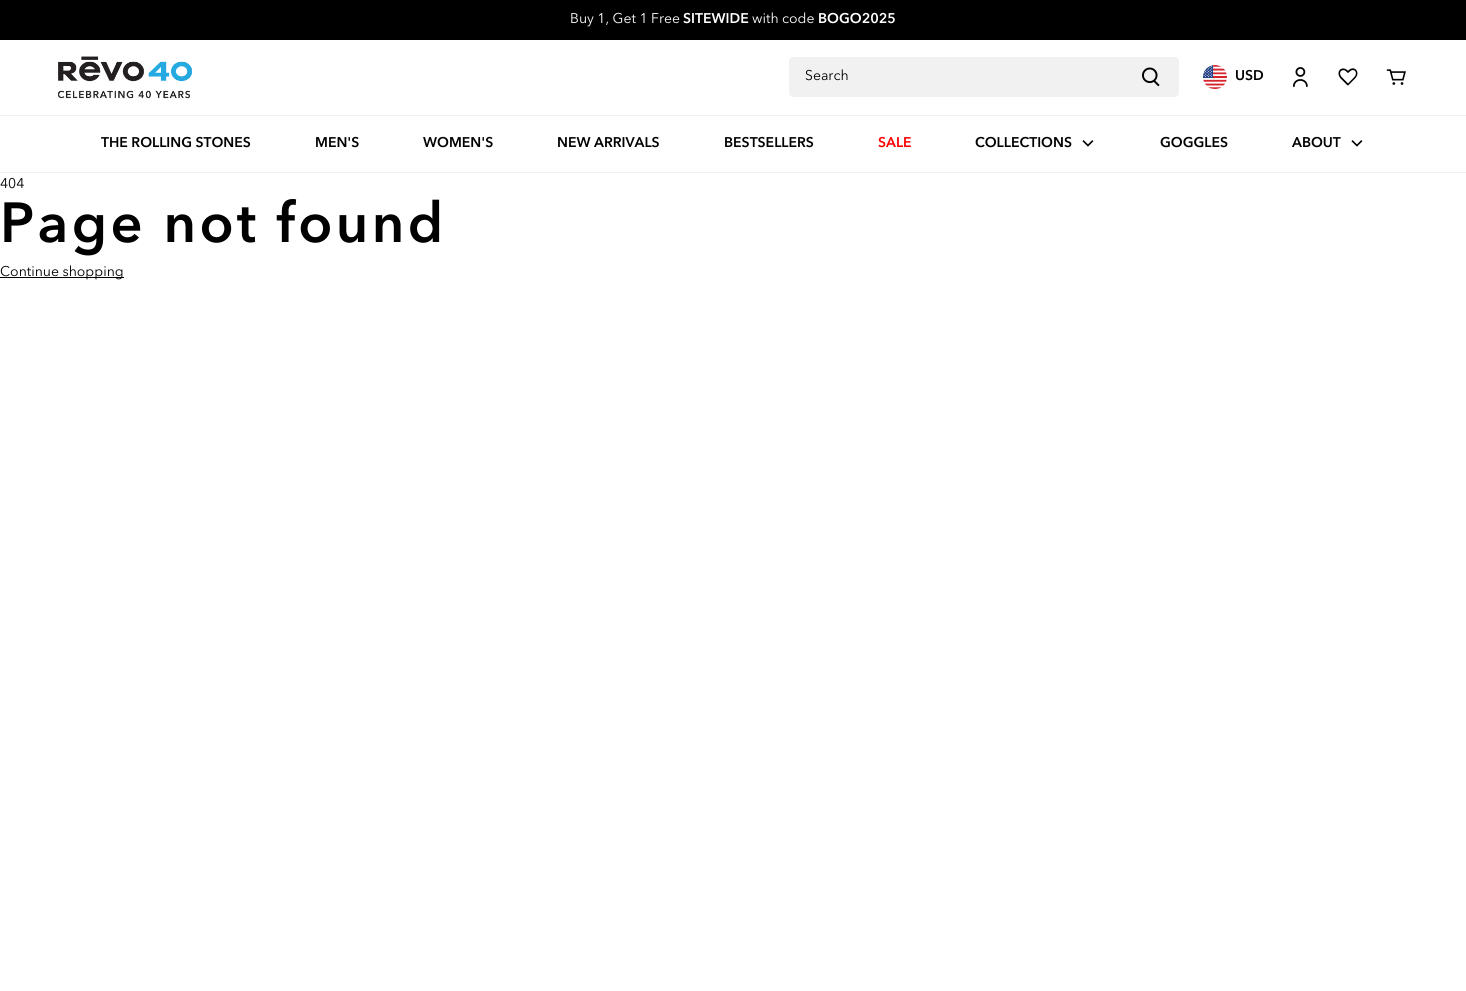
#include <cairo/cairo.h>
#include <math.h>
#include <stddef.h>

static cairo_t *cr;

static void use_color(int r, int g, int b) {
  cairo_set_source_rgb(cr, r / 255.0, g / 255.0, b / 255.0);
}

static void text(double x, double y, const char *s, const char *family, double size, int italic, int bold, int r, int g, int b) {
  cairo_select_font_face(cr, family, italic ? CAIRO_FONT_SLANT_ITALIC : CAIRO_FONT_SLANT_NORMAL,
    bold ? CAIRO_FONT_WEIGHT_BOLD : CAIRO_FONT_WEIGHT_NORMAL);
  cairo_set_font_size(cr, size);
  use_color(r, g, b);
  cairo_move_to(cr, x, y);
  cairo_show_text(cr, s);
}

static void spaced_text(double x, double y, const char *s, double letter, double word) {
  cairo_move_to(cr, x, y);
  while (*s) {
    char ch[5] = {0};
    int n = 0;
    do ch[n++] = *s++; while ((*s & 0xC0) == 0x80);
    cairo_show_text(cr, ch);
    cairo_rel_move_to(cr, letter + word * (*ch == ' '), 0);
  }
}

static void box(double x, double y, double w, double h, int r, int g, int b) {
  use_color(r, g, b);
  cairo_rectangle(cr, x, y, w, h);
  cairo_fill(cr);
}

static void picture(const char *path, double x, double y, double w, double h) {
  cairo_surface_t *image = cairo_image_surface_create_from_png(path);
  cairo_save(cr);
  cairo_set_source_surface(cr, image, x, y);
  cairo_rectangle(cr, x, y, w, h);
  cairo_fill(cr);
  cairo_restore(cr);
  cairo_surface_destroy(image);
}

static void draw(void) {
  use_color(255, 255, 255);
  cairo_paint(cr);
  box(0, 0, 1466, 40, 0, 0, 0);
  box(0, 115, 1466, 1, 241, 241, 241);
  picture("img_01.png", 58, 56, 135, 43);
  cairo_new_path(cr);
  cairo_move_to(cr, 793, 57);
  cairo_line_to(cr, 1139, 57);
  cairo_line_to(cr, 1139, 97);
  cairo_line_to(cr, 793, 97);
  cairo_curve_to(cr, 791, 97, 789, 95, 789, 93);
  cairo_line_to(cr, 789, 61);
  cairo_curve_to(cr, 789, 59, 791, 57, 793, 57);
  cairo_close_path(cr);
  cairo_fill(cr);
  cairo_new_path(cr);
  cairo_move_to(cr, 1139, 57);
  cairo_line_to(cr, 1175, 57);
  cairo_curve_to(cr, 1177, 57, 1179, 59, 1179, 61);
  cairo_line_to(cr, 1179, 93);
  cairo_curve_to(cr, 1179, 95, 1177, 97, 1175, 97);
  cairo_line_to(cr, 1139, 97);
  cairo_close_path(cr);
  cairo_fill(cr);
  picture("img_02.png", 1142, 67, 18, 20);
  picture("img_03.png", 1203, 65, 24, 24);
  picture("img_04.png", 1293, 67, 15, 20);
  picture("img_05.png", 1338, 68, 20, 18);
  picture("img_06.png", 1386, 69, 20, 16);
  box(0, 172, 1466, 1, 241, 241, 241);
  picture("img_07.png", 1082, 140, 12, 7);
  picture("img_07.png", 1351, 140, 12, 7);
  box(0, 277, 124, 1, 0, 0, 0);
  text(570, 23, "Buy 1, Get 1 Free", "Avenir Next", 14, 0, 0, 255, 255, 255);
  text(683, 23, "SITEWIDE", "Avenir Next SemiBold", 14, 0, 0, 255, 255, 255);
  text(752, 23, "with code", "Avenir Next", 14, 0, 0, 255, 255, 255);
  text(818, 23, "BOGO2025", "Avenir Next SemiBold", 14, 0, 0, 255, 255, 255);
  text(805, 80, "Search", "Avenir Next", 14, 0, 0, 0, 0, 0);
  text(1235, 80, "USD", "Avenir Next SemiBold", 14, 0, 0, 0, 0, 0);
  text(101, 147, "THE ROLLING STONES", "Avenir Next SemiBold", 14, 0, 0, 0, 0, 0);
  text(315, 147, "MEN'S", "Avenir Next SemiBold", 14, 0, 0, 0, 0, 0);
  text(423, 147, "WOMEN'S", "Avenir Next SemiBold", 14, 0, 0, 0, 0, 0);
  text(557, 147, "NEW ARRIVALS", "Avenir Next SemiBold", 14, 0, 0, 0, 0, 0);
  text(724, 147, "BESTSELLERS", "Avenir Next SemiBold", 14, 0, 0, 0, 0, 0);
  text(878, 147, "SALE", "Avenir Next SemiBold", 14, 0, 0, 255, 0, 0);
  text(975, 147, "COLLECTIONS", "Avenir Next SemiBold", 14, 0, 0, 0, 0, 0);
  text(1160, 147, "GOGGLES", "Avenir Next SemiBold", 14, 0, 0, 0, 0, 0);
  text(1292, 147, "ABOUT", "Avenir Next SemiBold", 14, 0, 0, 0, 0, 0);
  text(0, 188, "404", "Avenir Next", 14, 0, 0, 0, 0, 0);
  cairo_select_font_face(cr, "Avenir Next SemiBold", CAIRO_FONT_SLANT_NORMAL, CAIRO_FONT_WEIGHT_NORMAL);
  cairo_set_font_size(cr, 56);
  spaced_text(0, 242, "Page not found", 3.4, 0);
  text(0, 276, "Continue shopping", "Avenir Next", 14, 0, 0, 0, 0, 0);
}

int main(void) {
  cairo_surface_t *surface = cairo_image_surface_create(CAIRO_FORMAT_RGB24, 1466, 991);
  cr = cairo_create(surface);
  cairo_font_options_t *options = cairo_font_options_create();
  cairo_font_options_set_hint_metrics(options, CAIRO_HINT_METRICS_OFF);
  cairo_font_options_set_hint_style(options, CAIRO_HINT_STYLE_NONE);
  cairo_set_font_options(cr, options);
  cairo_set_miter_limit(cr, 4);
  draw();
  cairo_surface_write_to_png(surface, "out.png");
  cairo_font_options_destroy(options);
  cairo_destroy(cr);
  cairo_surface_destroy(surface);
  return 0;
}
